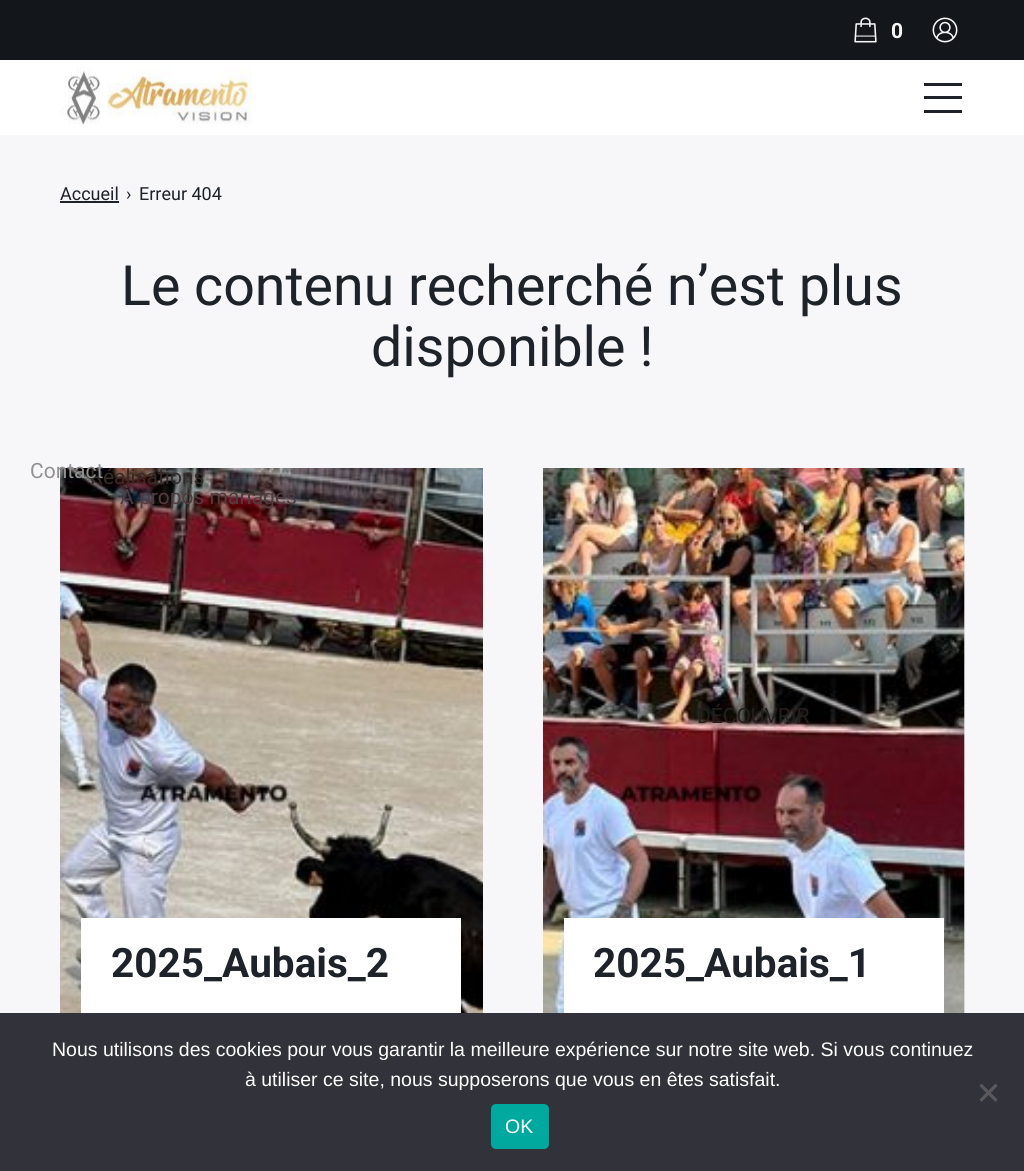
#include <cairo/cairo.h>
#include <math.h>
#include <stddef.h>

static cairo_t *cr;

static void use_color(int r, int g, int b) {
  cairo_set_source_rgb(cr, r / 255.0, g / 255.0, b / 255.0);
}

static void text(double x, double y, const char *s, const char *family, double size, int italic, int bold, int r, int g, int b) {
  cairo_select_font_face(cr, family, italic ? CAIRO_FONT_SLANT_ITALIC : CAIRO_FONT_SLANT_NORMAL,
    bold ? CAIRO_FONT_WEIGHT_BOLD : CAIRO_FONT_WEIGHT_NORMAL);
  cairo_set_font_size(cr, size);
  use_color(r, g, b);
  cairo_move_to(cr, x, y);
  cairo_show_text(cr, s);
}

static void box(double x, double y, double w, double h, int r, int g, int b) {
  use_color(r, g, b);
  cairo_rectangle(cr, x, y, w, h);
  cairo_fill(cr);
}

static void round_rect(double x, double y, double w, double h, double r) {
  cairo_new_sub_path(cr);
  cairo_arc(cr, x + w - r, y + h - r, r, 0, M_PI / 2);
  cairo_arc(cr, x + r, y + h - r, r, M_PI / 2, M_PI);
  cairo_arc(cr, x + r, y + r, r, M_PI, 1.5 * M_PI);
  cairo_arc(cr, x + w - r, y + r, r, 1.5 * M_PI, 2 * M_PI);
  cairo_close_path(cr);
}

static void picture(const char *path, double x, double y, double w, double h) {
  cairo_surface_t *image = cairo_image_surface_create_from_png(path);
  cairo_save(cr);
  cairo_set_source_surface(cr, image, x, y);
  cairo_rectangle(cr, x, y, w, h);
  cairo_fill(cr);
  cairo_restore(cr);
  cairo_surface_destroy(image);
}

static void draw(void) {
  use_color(247, 247, 249);
  cairo_paint(cr);
  box(0, 0, 1024, 60, 19, 22, 26);
  picture("img_01.png", 854, 17, 23, 26);
  picture("img_02.png", 932, 17, 26, 26);
  box(0, 60, 1024, 75, 255, 255, 255);
  picture("img_03.png", 60, 67, 192, 59);
  box(924, 96, 38, 3, 30, 34, 41);
  box(924, 83, 38, 3, 30, 34, 41);
  box(924, 110, 38, 3, 30, 34, 41);
  box(60, 201, 59, 2, 30, 34, 41);
  picture("img_04.png", 60, 468, 423, 545);
  box(81, 918, 380, 95, 255, 255, 255);
  box(964, 468, 1, 545, 232, 232, 238);
  picture("img_05.png", 543, 468, 422, 545);
  box(564, 918, 380, 95, 255, 255, 255);
  box(0, 1013, 1024, 158, 50, 50, 58);
  use_color(89, 89, 93);
  cairo_new_path(cr);
  cairo_move_to(cr, 995.5, 1083.5);
  cairo_line_to(cr, 997.5, 1086);
  cairo_line_to(cr, 981.5, 1102);
  cairo_line_to(cr, 979.5, 1099.5);
  cairo_close_path(cr);
  cairo_fill(cr);
  cairo_new_path(cr);
  cairo_move_to(cr, 979.5, 1086);
  cairo_line_to(cr, 981.5, 1083.5);
  cairo_line_to(cr, 997.5, 1099.5);
  cairo_line_to(cr, 995.5, 1102);
  cairo_close_path(cr);
  cairo_fill(cr);
  use_color(0, 169, 157);
  round_rect(491, 1104, 58, 45, 5);
  cairo_fill(cr);
  text(891, 38, "0", "Roboto", 21, 0, 1, 247, 247, 249);
  text(90, 484, "Réalisations", "Roboto", 21, 0, 0, 53, 42, 39);
  text(30, 478, "Contact", "Roboto", 21, 0, 0, 146, 146, 147);
  text(120, 504, "À propos mariages", "Roboto", 21, 0, 0, 81, 59, 62);
  text(60, 200, "Accueil", "Roboto", 18, 0, 0, 30, 34, 41);
  text(126, 200, "›", "Roboto", 18, 0, 0, 30, 34, 41);
  text(139, 200, "Erreur 404", "Roboto", 18, 0, 0, 30, 34, 41);
  text(121, 305, "Le contenu recherché n’est plus", "Roboto", 55.5, 0, 0, 30, 34, 41);
  text(371, 366, "disponible !", "Roboto", 55.5, 0, 0, 30, 34, 41);
  text(111, 977, "2025_Aubais_2", "Roboto", 40.5, 0, 1, 30, 34, 41);
  text(697, 723, "DÉCOUVRIR", "Roboto", 21, 0, 0, 36, 31, 28);
  text(593, 977, "2025_Aubais_1", "Roboto", 40.5, 0, 1, 30, 34, 41);
  text(52, 1056, "Nous utilisons des cookies pour vous garantir la meilleure expérience sur notre site web. Si vous continuez", "Liberation Sans", 19.5, 0, 0, 255, 255, 255);
  text(245, 1086, "à utiliser ce site, nous supposerons que vous en êtes satisfait.", "Liberation Sans", 19.5, 0, 0, 255, 255, 255);
  text(505, 1133, "OK", "Liberation Sans", 19.5, 0, 0, 255, 255, 255);
}

int main(void) {
  cairo_surface_t *surface = cairo_image_surface_create(CAIRO_FORMAT_RGB24, 1024, 1171);
  cr = cairo_create(surface);
  cairo_font_options_t *options = cairo_font_options_create();
  cairo_font_options_set_hint_metrics(options, CAIRO_HINT_METRICS_OFF);
  cairo_font_options_set_hint_style(options, CAIRO_HINT_STYLE_NONE);
  cairo_set_font_options(cr, options);
  cairo_set_miter_limit(cr, 4);
  draw();
  cairo_surface_write_to_png(surface, "out.png");
  cairo_font_options_destroy(options);
  cairo_destroy(cr);
  cairo_surface_destroy(surface);
  return 0;
}
